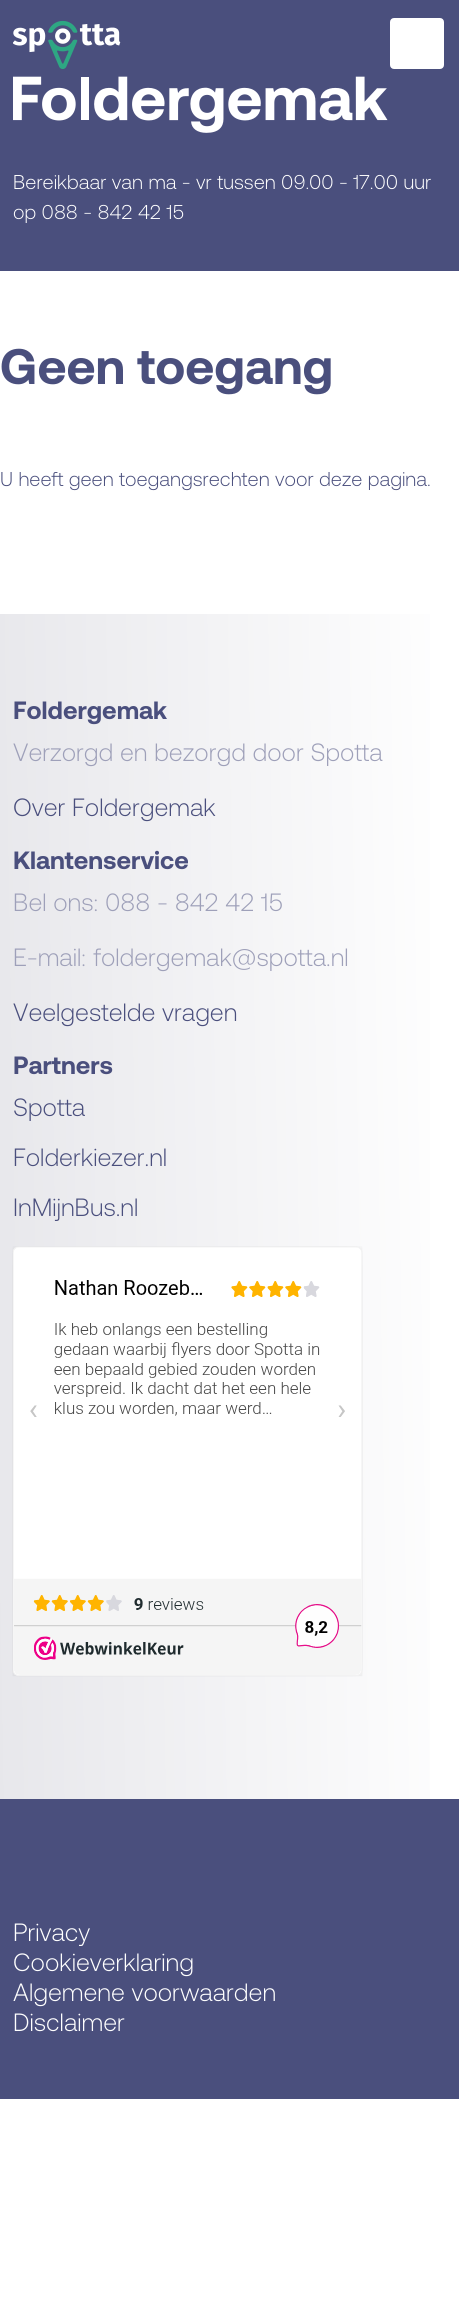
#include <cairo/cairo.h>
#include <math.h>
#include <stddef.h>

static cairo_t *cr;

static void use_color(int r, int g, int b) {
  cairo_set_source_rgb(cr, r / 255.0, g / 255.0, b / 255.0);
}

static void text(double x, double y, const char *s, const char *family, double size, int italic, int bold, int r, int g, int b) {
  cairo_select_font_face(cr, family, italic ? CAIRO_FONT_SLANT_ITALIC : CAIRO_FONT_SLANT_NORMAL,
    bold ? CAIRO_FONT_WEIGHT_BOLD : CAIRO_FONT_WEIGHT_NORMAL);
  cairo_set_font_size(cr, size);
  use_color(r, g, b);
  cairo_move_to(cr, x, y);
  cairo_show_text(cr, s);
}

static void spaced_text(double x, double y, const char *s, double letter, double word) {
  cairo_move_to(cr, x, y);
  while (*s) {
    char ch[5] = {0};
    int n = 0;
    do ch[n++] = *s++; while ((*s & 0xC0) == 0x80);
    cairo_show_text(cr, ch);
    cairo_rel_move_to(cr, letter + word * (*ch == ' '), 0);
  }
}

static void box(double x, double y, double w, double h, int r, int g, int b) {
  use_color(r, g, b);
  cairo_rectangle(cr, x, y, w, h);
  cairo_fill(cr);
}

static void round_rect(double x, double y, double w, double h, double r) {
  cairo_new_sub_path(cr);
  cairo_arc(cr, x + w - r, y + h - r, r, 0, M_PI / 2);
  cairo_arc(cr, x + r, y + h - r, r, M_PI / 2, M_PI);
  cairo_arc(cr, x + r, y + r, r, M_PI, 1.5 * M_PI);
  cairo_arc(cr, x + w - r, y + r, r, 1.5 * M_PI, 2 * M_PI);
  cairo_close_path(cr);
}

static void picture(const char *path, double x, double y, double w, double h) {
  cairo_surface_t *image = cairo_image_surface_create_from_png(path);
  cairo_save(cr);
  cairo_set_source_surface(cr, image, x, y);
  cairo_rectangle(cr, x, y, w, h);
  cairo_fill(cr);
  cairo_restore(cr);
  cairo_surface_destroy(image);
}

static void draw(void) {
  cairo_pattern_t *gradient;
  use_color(255, 255, 255);
  cairo_paint(cr);
  box(0, 0, 459, 271, 74, 79, 125);
  use_color(255, 255, 255);
  round_rect(391.5, 19.5, 51, 48, 2.5);
  cairo_fill_preserve(cr);
  cairo_set_line_width(cr, 3);
  cairo_stroke(cr);
  picture("img_01.png", 13, 20, 375, 113);
  gradient = cairo_pattern_create_linear(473, 1352, -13, 1360);
  cairo_pattern_add_color_stop_rgba(gradient, 0, 1, 1, 1, 1);
  cairo_pattern_add_color_stop_rgba(gradient, 1, 0.906, 0.906, 0.922, 1);
  cairo_set_source(cr, gradient);
  cairo_pattern_destroy(gradient);
  cairo_rectangle(cr, 0, 614, 430, 1185);
  cairo_fill(cr);
  picture("img_02.png", 12, 1246, 351, 431);
  box(0, 1799, 459, 300, 74, 79, 125);
  text(13, 189, "Bereikbaar van ma - vr tussen 09.00 - 17.00 uur", "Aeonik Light", 20, 0, 0, 255, 255, 255);
  text(13, 219, "op 088 - 842 42 15", "Aeonik Light", 20, 0, 0, 255, 255, 255);
  text(0, 384, "Geen toegang", "Aeonik", 50, 0, 1, 74, 79, 125);
  text(0, 486, "U heeft geen toegangsrechten voor deze pagina.", "Aeonik Light", 20, 0, 0, 74, 79, 125);
  text(13, 719, "Foldergemak", "Aeonik", 25, 0, 1, 74, 79, 125);
  text(13, 761, "Verzorgd en bezorgd door Spotta", "Aeonik Light", 25, 0, 0, 158, 160, 185);
  text(13, 816, "Over Foldergemak", "Aeonik Light", 25, 0, 0, 74, 79, 125);
  text(13, 869, "Klantenservice", "Aeonik", 25, 0, 1, 74, 79, 125);
  text(13, 911, "Bel ons: 088 - 842 42 15", "Aeonik Light", 25, 0, 0, 158, 160, 185);
  spaced_text(13, 966, "E-mail: foldergemak@spotta.nl", 0, 1);
  text(13, 1021, "Veelgestelde vragen", "Aeonik Light", 25, 0, 0, 74, 79, 125);
  text(13, 1074, "Partners", "Aeonik", 25, 0, 1, 74, 79, 125);
  text(13, 1116, "Spotta", "Aeonik Light", 25, 0, 0, 74, 79, 125);
  text(13, 1166, "Folderkiezer.nl", "Aeonik Light", 25, 0, 0, 74, 79, 125);
  text(13, 1216, "InMijnBus.nl", "Aeonik Light", 25, 0, 0, 74, 79, 125);
  text(13, 1941, "Privacy", "Aeonik Light", 25, 0, 0, 255, 255, 255);
  text(13, 1971, "Cookieverklaring", "Aeonik Light", 25, 0, 0, 255, 255, 255);
  text(13, 2001, "Algemene voorwaarden", "Aeonik Light", 25, 0, 0, 255, 255, 255);
  text(13, 2031, "Disclaimer", "Aeonik Light", 25, 0, 0, 255, 255, 255);
}

int main(void) {
  cairo_surface_t *surface = cairo_image_surface_create(CAIRO_FORMAT_RGB24, 459, 2299);
  cr = cairo_create(surface);
  cairo_font_options_t *options = cairo_font_options_create();
  cairo_font_options_set_hint_metrics(options, CAIRO_HINT_METRICS_OFF);
  cairo_font_options_set_hint_style(options, CAIRO_HINT_STYLE_NONE);
  cairo_set_font_options(cr, options);
  cairo_set_miter_limit(cr, 4);
  draw();
  cairo_surface_write_to_png(surface, "out.png");
  cairo_font_options_destroy(options);
  cairo_destroy(cr);
  cairo_surface_destroy(surface);
  return 0;
}
